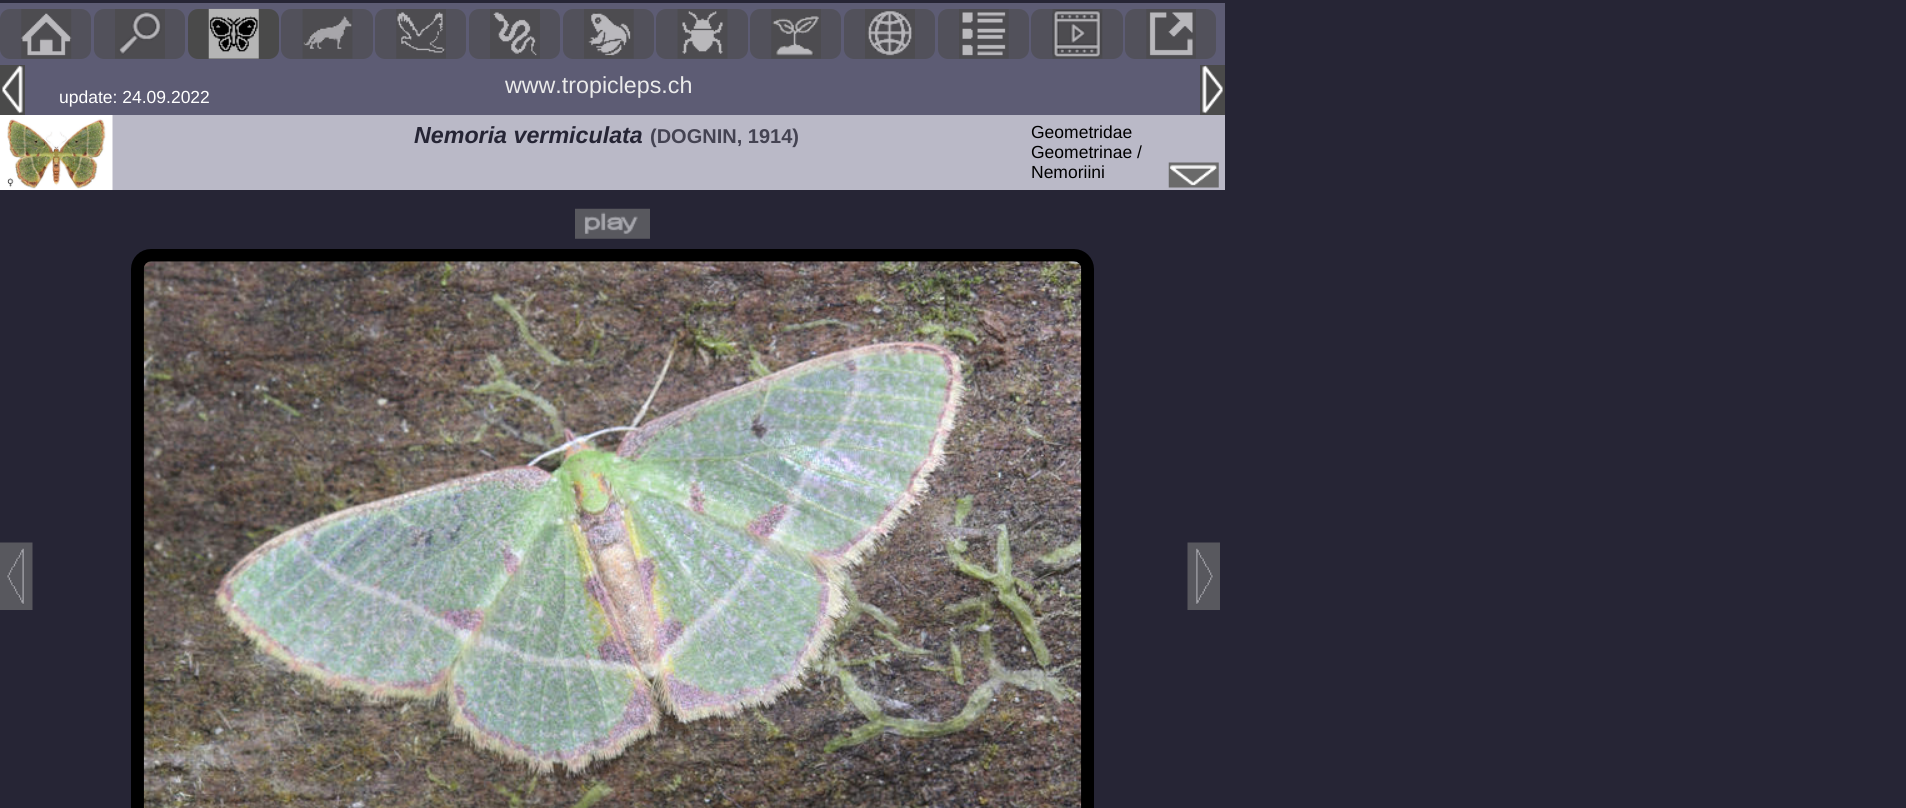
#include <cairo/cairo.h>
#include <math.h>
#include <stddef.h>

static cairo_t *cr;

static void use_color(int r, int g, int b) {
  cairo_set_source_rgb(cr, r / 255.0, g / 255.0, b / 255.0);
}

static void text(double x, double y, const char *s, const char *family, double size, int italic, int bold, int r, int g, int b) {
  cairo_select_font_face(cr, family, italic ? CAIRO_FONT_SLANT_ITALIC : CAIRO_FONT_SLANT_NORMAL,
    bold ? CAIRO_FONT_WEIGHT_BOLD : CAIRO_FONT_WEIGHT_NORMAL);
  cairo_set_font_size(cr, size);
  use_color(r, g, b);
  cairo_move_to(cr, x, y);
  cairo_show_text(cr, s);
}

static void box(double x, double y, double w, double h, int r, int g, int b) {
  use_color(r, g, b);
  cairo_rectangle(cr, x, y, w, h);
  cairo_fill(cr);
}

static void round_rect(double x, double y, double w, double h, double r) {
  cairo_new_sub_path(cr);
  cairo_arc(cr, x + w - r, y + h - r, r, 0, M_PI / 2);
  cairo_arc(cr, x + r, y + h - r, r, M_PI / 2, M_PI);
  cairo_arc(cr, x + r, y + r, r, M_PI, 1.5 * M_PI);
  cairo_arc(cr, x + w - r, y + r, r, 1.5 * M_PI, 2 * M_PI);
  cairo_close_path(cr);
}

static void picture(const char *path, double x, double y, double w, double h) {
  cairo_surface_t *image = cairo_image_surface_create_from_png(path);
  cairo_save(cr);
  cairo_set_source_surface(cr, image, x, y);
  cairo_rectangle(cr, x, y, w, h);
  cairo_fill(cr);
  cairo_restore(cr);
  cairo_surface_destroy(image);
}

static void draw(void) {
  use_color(38, 37, 53);
  cairo_paint(cr);
  box(0, 3, 1225, 62, 93, 92, 116);
  use_color(82, 81, 91);
  round_rect(0, 9, 91, 50, 10);
  cairo_fill(cr);
  picture("img_01.png", 21, 9, 51, 50);
  round_rect(94, 9, 91, 50, 10);
  cairo_fill(cr);
  picture("img_02.png", 115, 9, 50, 50);
  use_color(74, 74, 74);
  round_rect(188, 9, 91, 50, 10);
  cairo_fill(cr);
  picture("img_03.png", 208, 8, 51, 51);
  use_color(82, 81, 91);
  round_rect(281, 9, 92, 50, 10);
  cairo_fill(cr);
  picture("img_04.png", 302, 9, 51, 50);
  round_rect(375, 9, 91, 50, 10);
  cairo_fill(cr);
  picture("img_05.png", 396, 9, 50, 50);
  round_rect(469, 9, 91, 50, 10);
  cairo_fill(cr);
  picture("img_06.png", 490, 9, 50, 50);
  round_rect(563, 9, 91, 50, 10);
  cairo_fill(cr);
  picture("img_07.png", 584, 9, 50, 50);
  round_rect(656, 9, 92, 50, 10);
  cairo_fill(cr);
  picture("img_08.png", 677, 9, 51, 50);
  round_rect(750, 9, 91, 50, 10);
  cairo_fill(cr);
  picture("img_09.png", 771, 9, 50, 50);
  round_rect(844, 9, 91, 50, 10);
  cairo_fill(cr);
  picture("img_10.png", 865, 9, 50, 50);
  round_rect(938, 9, 91, 50, 10);
  cairo_fill(cr);
  picture("img_11.png", 959, 9, 50, 50);
  round_rect(1031, 9, 92, 50, 10);
  cairo_fill(cr);
  picture("img_12.png", 1052, 9, 51, 50);
  round_rect(1125, 9, 91, 50, 10);
  cairo_fill(cr);
  picture("img_13.png", 1146, 9, 50, 50);
  box(25, 65, 1175, 50, 93, 92, 116);
  picture("img_14.png", 0, 65, 25, 50);
  picture("img_15.png", 1200, 65, 25, 50);
  box(112, 115, 1113, 75, 186, 185, 199);
  picture("img_16.png", 0, 115, 113, 75);
  picture("img_17.png", 1168, 162, 51, 26);
  picture("img_18.png", 575, 208, 75, 31);
  picture("img_19.png", 0, 542, 33, 68);
  round_rect(137.5, 255.5, 950, 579, 13.5);
  use_color(0, 0, 0);
  cairo_set_line_width(cr, 13);
  cairo_stroke(cr);
  picture("img_20.png", 143, 261, 939, 547);
  picture("img_21.png", 1187, 542, 33, 68);
  text(59, 103, "update: 24.09.2022", "Liberation Sans", 17.5, 0, 0, 255, 255, 255);
  text(505, 93, "www.tropicleps.ch", "Liberation Sans", 23.25, 0, 0, 234, 234, 234);
  text(414, 143, "Nemoria vermiculata", "Liberation Sans", 23.25, 1, 1, 38, 37, 53);
  text(650, 143, "(DOGNIN, 1914)", "Liberation Sans", 20, 0, 1, 68, 67, 82);
  text(1031, 138, "Geometridae", "Liberation Sans", 17.5, 0, 0, 0, 0, 0);
  text(1031, 158, "Geometrinae /", "Liberation Sans", 17.5, 0, 0, 0, 0, 0);
  text(1031, 178, "Nemoriini", "Liberation Sans", 17.5, 0, 0, 0, 0, 0);
}

int main(void) {
  cairo_surface_t *surface = cairo_image_surface_create(CAIRO_FORMAT_RGB24, 1906, 808);
  cr = cairo_create(surface);
  cairo_font_options_t *options = cairo_font_options_create();
  cairo_font_options_set_hint_metrics(options, CAIRO_HINT_METRICS_OFF);
  cairo_font_options_set_hint_style(options, CAIRO_HINT_STYLE_NONE);
  cairo_set_font_options(cr, options);
  cairo_set_miter_limit(cr, 4);
  draw();
  cairo_surface_write_to_png(surface, "out.png");
  cairo_font_options_destroy(options);
  cairo_destroy(cr);
  cairo_surface_destroy(surface);
  return 0;
}
